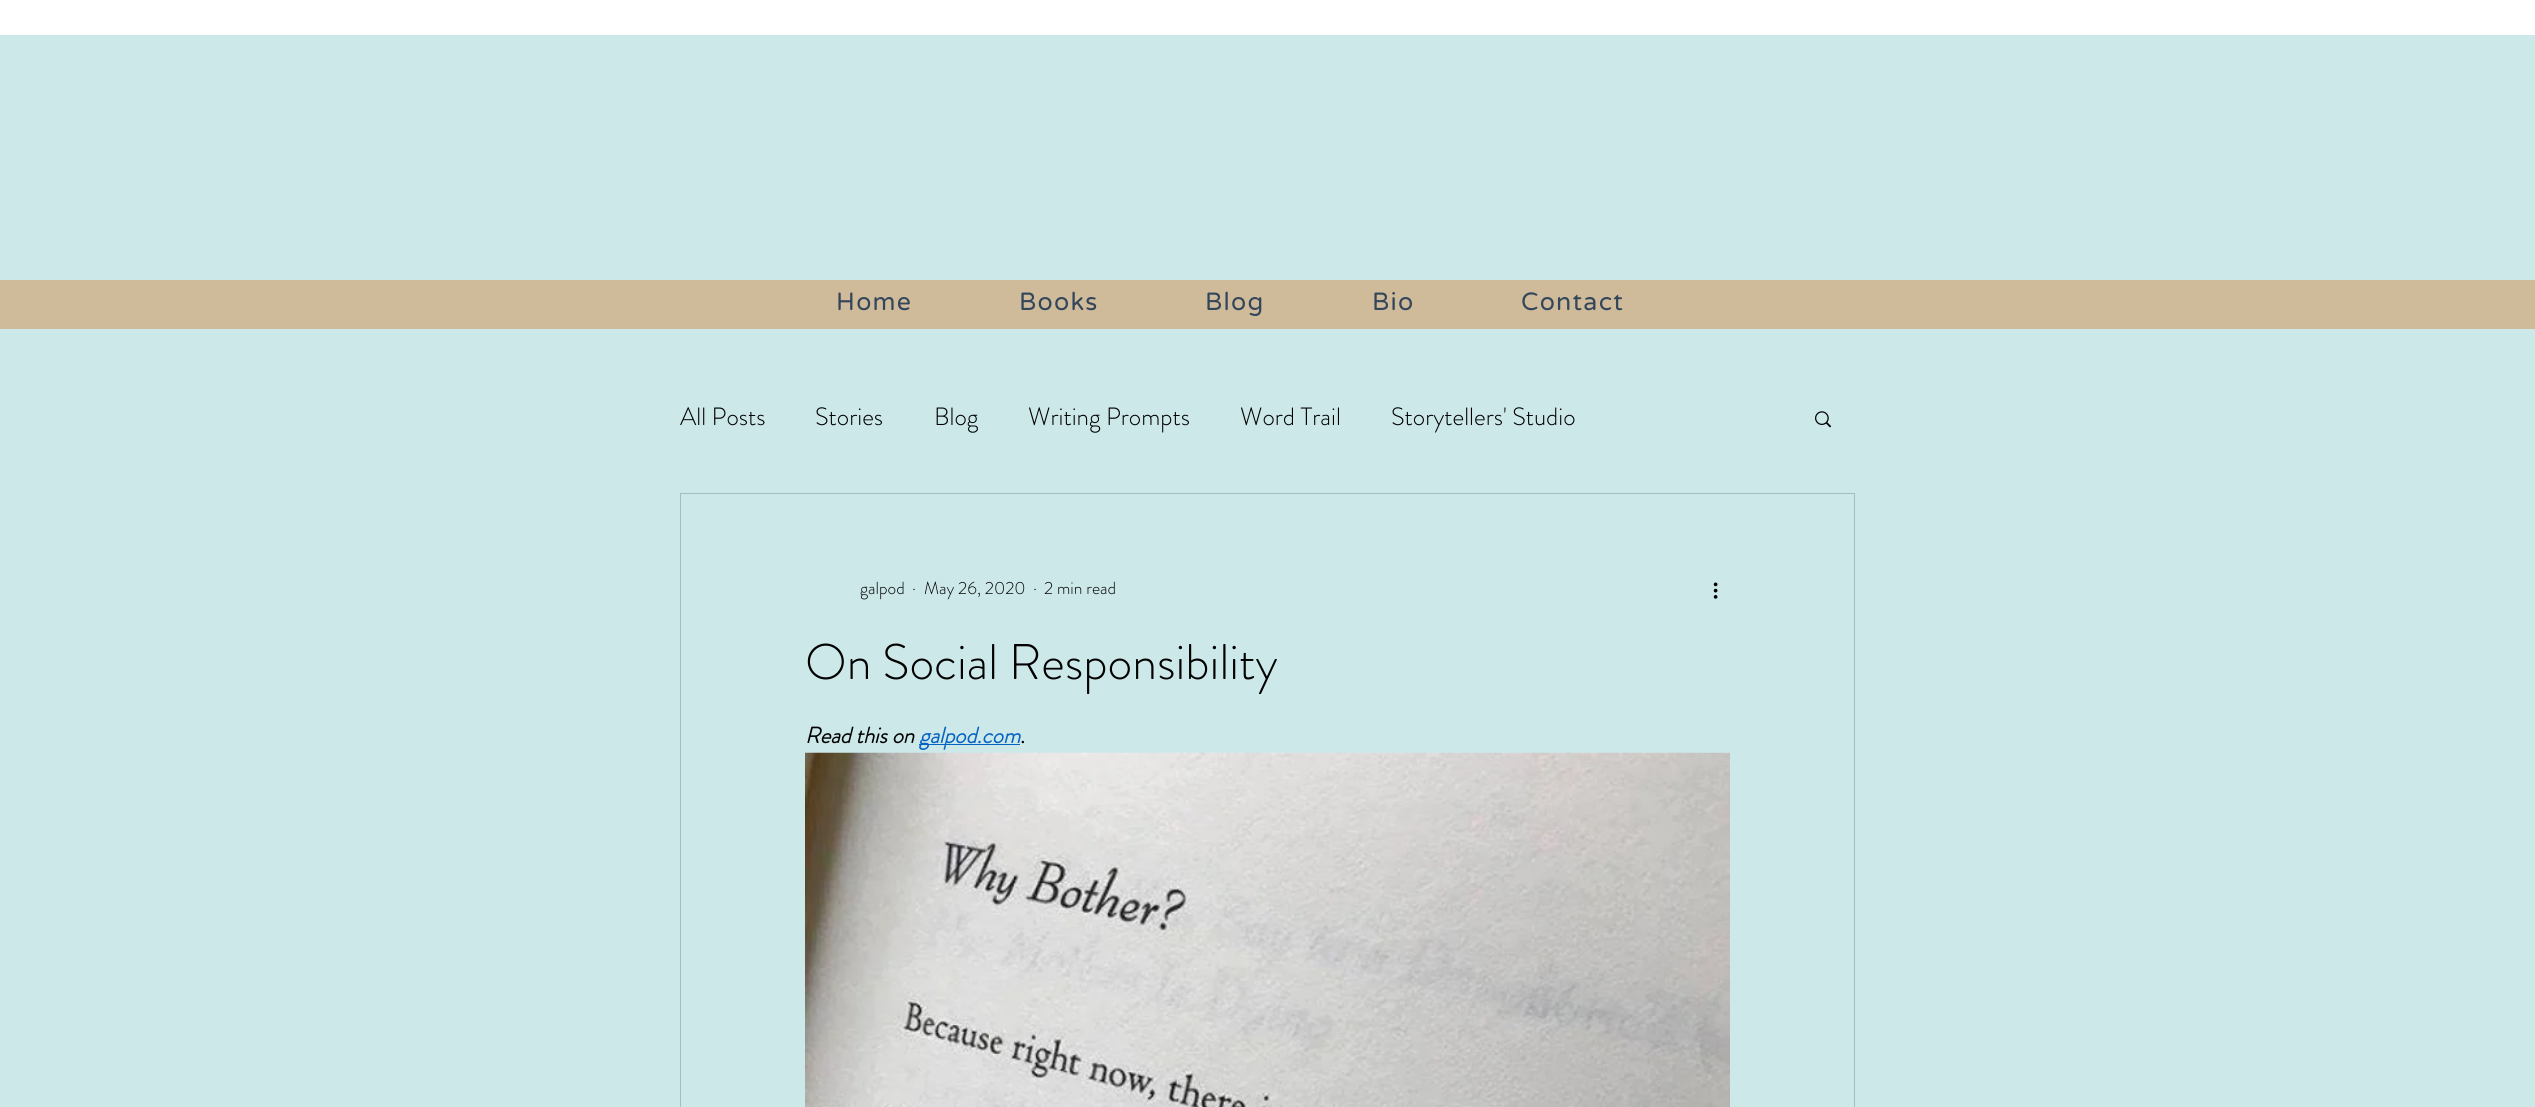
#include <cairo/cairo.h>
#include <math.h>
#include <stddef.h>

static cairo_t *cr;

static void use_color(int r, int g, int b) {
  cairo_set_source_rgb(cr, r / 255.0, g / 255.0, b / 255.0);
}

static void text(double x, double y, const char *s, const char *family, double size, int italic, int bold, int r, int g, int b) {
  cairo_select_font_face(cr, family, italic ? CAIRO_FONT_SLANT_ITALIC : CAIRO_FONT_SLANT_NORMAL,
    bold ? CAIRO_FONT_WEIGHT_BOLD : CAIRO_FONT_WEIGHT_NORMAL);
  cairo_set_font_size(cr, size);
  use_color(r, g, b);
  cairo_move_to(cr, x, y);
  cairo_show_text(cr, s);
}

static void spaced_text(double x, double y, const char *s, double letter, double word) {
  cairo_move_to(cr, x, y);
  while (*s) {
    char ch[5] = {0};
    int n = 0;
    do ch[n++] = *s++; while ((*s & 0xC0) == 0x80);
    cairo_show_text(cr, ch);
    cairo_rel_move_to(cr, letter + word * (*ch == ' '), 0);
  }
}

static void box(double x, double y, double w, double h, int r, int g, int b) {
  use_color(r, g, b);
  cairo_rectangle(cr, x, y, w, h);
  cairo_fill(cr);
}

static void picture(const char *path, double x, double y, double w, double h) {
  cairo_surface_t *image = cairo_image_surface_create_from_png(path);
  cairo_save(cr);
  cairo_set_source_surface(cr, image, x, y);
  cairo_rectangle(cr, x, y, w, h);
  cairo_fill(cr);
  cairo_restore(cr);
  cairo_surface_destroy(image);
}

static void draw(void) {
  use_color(204, 232, 233);
  cairo_paint(cr);
  box(0, 0, 2535, 35, 255, 255, 255);
  box(0, 280, 2535, 49, 207, 187, 154);
  picture("img_01.png", 1815, 411, 17, 17);
  cairo_rectangle(cr, 680.5, 493.5, 1174, 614);
  use_color(166, 189, 190);
  cairo_set_line_width(cr, 1);
  cairo_stroke(cr);
  picture("img_02.png", 1713, 582, 5, 17);
  box(919, 744, 101, 1, 5, 99, 193);
  picture("img_03.png", 805, 752, 925, 355);
  cairo_select_font_face(cr, "Varela Round", CAIRO_FONT_SLANT_NORMAL, CAIRO_FONT_WEIGHT_NORMAL);
  cairo_set_font_size(cr, 25);
  use_color(51, 70, 91);
  spaced_text(836, 310, "Home", 1.25, 0);
  spaced_text(1019, 310, "Books", 1.25, 0);
  spaced_text(1205, 310, "Blog", 1.25, 0);
  spaced_text(1372, 310, "Bio", 1.25, 0);
  spaced_text(1521, 310, "Contact", 1.25, 0);
  text(680, 425, "All Posts", "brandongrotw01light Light", 25, 0, 0, 0, 0, 0);
  text(815, 425, "Stories", "brandongrotw01light Light", 25, 0, 0, 0, 0, 0);
  text(934, 425, "Blog", "brandongrotw01light Light", 25, 0, 0, 0, 0, 0);
  text(1028, 425, "Writing Prompts", "brandongrotw01light Light", 25, 0, 0, 0, 0, 0);
  text(1240, 425, "Word Trail", "brandongrotw01light Light", 25, 0, 0, 0, 0, 0);
  text(1391, 425, "Storytellers' Studio", "brandongrotw01light Light", 25, 0, 0, 0, 0, 0);
  text(860, 594, "galpod", "brandongrotw01light Light", 17.5, 0, 0, 0, 0, 0);
  text(912, 594, "·", "brandongrotw01light Light", 17.5, 0, 0, 0, 0, 0);
  text(924, 594, "May 26, 2020", "brandongrotw01light Light", 17.5, 0, 0, 0, 0, 0);
  text(1033, 594, "·", "brandongrotw01light Light", 17.5, 0, 0, 0, 0, 0);
  text(1044, 594, "2 min read", "brandongrotw01light Light", 17.5, 0, 0, 0, 0, 0);
  text(805, 679, "On Social Responsibility", "brandongrotw01light Light", 50, 0, 0, 0, 0, 0);
  text(805, 743, "Read this on", "brandongrotw01light", 22.5, 1, 1, 0, 0, 0);
  text(919, 743, "galpod.com", "brandongrotw01light", 22.5, 1, 1, 5, 99, 193);
  text(1020, 743, ".", "brandongrotw01light", 22.5, 0, 1, 0, 0, 0);
}

int main(void) {
  cairo_surface_t *surface = cairo_image_surface_create(CAIRO_FORMAT_RGB24, 2535, 1107);
  cr = cairo_create(surface);
  cairo_font_options_t *options = cairo_font_options_create();
  cairo_font_options_set_hint_metrics(options, CAIRO_HINT_METRICS_OFF);
  cairo_font_options_set_hint_style(options, CAIRO_HINT_STYLE_NONE);
  cairo_set_font_options(cr, options);
  cairo_set_miter_limit(cr, 4);
  draw();
  cairo_surface_write_to_png(surface, "out.png");
  cairo_font_options_destroy(options);
  cairo_destroy(cr);
  cairo_surface_destroy(surface);
  return 0;
}
